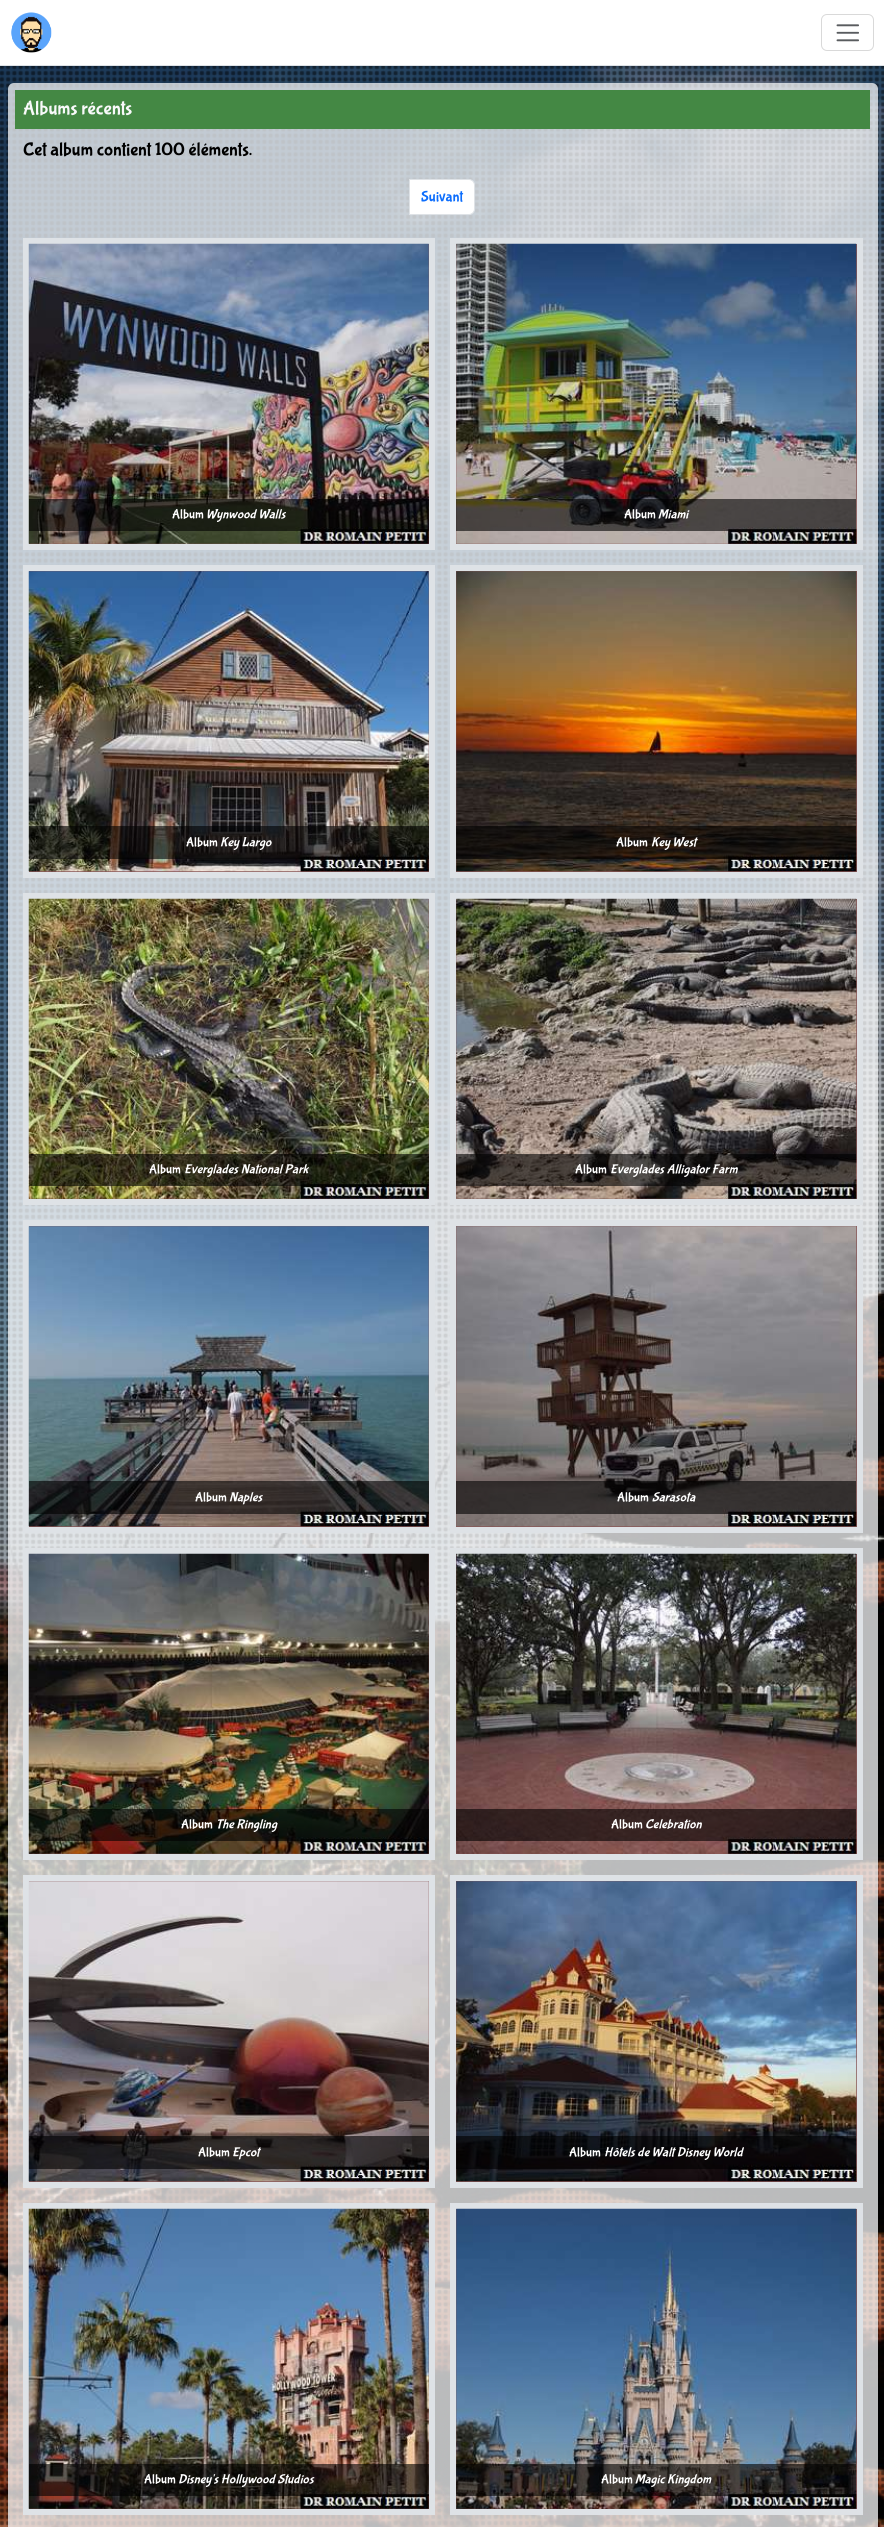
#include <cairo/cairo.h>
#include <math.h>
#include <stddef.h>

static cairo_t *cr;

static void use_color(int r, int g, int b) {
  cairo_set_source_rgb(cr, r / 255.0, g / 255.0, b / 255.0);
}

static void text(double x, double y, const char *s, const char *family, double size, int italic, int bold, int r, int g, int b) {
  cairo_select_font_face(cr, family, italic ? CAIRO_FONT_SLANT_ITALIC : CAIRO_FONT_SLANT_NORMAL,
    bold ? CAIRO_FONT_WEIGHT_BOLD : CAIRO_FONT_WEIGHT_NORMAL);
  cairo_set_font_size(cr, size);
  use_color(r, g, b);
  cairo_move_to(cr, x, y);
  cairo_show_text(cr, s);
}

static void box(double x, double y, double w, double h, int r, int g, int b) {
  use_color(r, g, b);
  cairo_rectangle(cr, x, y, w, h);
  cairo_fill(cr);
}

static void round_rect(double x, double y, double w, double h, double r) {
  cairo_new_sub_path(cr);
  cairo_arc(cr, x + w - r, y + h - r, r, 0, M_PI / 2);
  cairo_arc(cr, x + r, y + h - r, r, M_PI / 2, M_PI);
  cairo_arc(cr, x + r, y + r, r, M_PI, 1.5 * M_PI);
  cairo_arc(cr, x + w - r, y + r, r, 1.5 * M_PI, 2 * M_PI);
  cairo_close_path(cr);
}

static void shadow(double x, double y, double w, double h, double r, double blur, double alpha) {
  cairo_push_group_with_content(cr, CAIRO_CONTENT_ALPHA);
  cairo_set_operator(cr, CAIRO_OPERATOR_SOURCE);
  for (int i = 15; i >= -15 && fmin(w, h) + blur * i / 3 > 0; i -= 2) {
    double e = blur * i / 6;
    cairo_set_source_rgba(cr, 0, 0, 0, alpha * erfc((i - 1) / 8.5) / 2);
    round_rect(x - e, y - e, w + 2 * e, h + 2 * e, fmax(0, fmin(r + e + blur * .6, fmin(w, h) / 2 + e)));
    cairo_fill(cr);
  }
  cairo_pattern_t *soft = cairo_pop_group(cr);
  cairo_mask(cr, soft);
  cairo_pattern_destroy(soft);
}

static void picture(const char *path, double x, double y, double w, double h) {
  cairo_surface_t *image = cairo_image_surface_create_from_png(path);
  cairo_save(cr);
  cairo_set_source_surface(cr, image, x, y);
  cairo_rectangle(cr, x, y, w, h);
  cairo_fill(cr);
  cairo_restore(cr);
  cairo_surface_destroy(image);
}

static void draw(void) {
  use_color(255, 255, 255);
  cairo_paint(cr);
  picture("img_01.png", 0, 66, 884, 2461);
  box(0, 65, 884, 1, 222, 226, 230);
  picture("img_02.png", 11, 12, 41, 41);
  round_rect(821.5, 14.5, 52, 36, 5.5);
  use_color(217, 217, 217);
  cairo_set_line_width(cr, 1);
  cairo_stroke(cr);
  picture("img_03.png", 836, 24, 23, 18);
  cairo_save(cr);
  cairo_set_fill_rule(cr, CAIRO_FILL_RULE_EVEN_ODD);
  cairo_new_path(cr);
  cairo_move_to(cr, 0, 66);
  cairo_line_to(cr, 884, 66);
  cairo_line_to(cr, 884, 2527);
  cairo_line_to(cr, 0, 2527);
  cairo_close_path(cr);
  cairo_move_to(cr, 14, 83);
  cairo_line_to(cr, 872, 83);
  cairo_curve_to(cr, 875.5, 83, 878, 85.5, 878, 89);
  cairo_line_to(cr, 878, 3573);
  cairo_curve_to(cr, 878, 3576.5, 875.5, 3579, 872, 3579);
  cairo_line_to(cr, 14, 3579);
  cairo_curve_to(cr, 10.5, 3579, 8, 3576.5, 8, 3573);
  cairo_line_to(cr, 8, 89);
  cairo_curve_to(cr, 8, 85.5, 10.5, 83, 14, 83);
  cairo_close_path(cr);
  cairo_clip(cr);
  use_color(0, 0, 0);
  shadow(8, 90, 870, 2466, 6, 7.5, 0.15);
  cairo_restore(cr);
  cairo_set_source_rgba(cr, 0.973, 0.976, 0.98, 0.75);
  round_rect(8, 83, 870, 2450, 6);
  cairo_fill(cr);
  box(15, 90, 855, 39, 68, 136, 68);
  use_color(255, 255, 255);
  cairo_new_path(cr);
  cairo_move_to(cr, 409.5, 179.5);
  cairo_line_to(cr, 469, 179.5);
  cairo_curve_to(cr, 472, 179.5, 474.5, 182, 474.5, 185);
  cairo_line_to(cr, 474.5, 209);
  cairo_curve_to(cr, 474.5, 212, 472, 214.5, 469, 214.5);
  cairo_line_to(cr, 409.5, 214.5);
  cairo_close_path(cr);
  cairo_fill_preserve(cr);
  use_color(222, 226, 230);
  cairo_stroke(cr);
  use_color(136, 85, 85);
  cairo_rectangle(cr, 26, 241, 406, 306);
  cairo_fill_preserve(cr);
  use_color(222, 226, 230);
  cairo_set_line_width(cr, 6);
  cairo_stroke(cr);
  picture("img_04.png", 28, 243, 401, 301);
  cairo_set_source_rgba(cr, 0, 0, 0, 0.6);
  cairo_rectangle(cr, 29, 499, 400, 32);
  cairo_fill(cr);
  use_color(136, 85, 85);
  cairo_rectangle(cr, 453, 241, 407, 306);
  cairo_fill_preserve(cr);
  use_color(222, 226, 230);
  cairo_stroke(cr);
  picture("img_05.png", 456, 243, 401, 301);
  cairo_set_source_rgba(cr, 0, 0, 0, 0.6);
  cairo_rectangle(cr, 456, 499, 400, 32);
  cairo_fill(cr);
  use_color(136, 85, 85);
  cairo_rectangle(cr, 26, 568, 406, 307);
  cairo_fill_preserve(cr);
  use_color(222, 226, 230);
  cairo_stroke(cr);
  picture("img_06.png", 28, 571, 401, 301);
  cairo_set_source_rgba(cr, 0, 0, 0, 0.6);
  cairo_rectangle(cr, 29, 826, 400, 33);
  cairo_fill(cr);
  use_color(136, 85, 85);
  cairo_rectangle(cr, 453, 568, 407, 307);
  cairo_fill_preserve(cr);
  use_color(222, 226, 230);
  cairo_stroke(cr);
  picture("img_07.png", 456, 571, 401, 301);
  cairo_set_source_rgba(cr, 0, 0, 0, 0.6);
  cairo_rectangle(cr, 456, 826, 400, 33);
  cairo_fill(cr);
  use_color(136, 85, 85);
  cairo_rectangle(cr, 26, 896, 406, 306);
  cairo_fill_preserve(cr);
  use_color(222, 226, 230);
  cairo_stroke(cr);
  picture("img_08.png", 28, 898, 401, 301);
  cairo_set_source_rgba(cr, 0, 0, 0, 0.6);
  cairo_rectangle(cr, 29, 1154, 400, 32);
  cairo_fill(cr);
  use_color(136, 85, 85);
  cairo_rectangle(cr, 453, 896, 407, 306);
  cairo_fill_preserve(cr);
  use_color(222, 226, 230);
  cairo_stroke(cr);
  picture("img_09.png", 456, 898, 401, 301);
  cairo_set_source_rgba(cr, 0, 0, 0, 0.6);
  cairo_rectangle(cr, 456, 1154, 400, 32);
  cairo_fill(cr);
  use_color(136, 85, 85);
  cairo_rectangle(cr, 26, 1223, 406, 307);
  cairo_fill_preserve(cr);
  use_color(222, 226, 230);
  cairo_stroke(cr);
  picture("img_10.png", 28, 1226, 401, 301);
  cairo_set_source_rgba(cr, 0, 0, 0, 0.6);
  cairo_rectangle(cr, 29, 1481, 400, 33);
  cairo_fill(cr);
  use_color(136, 85, 85);
  cairo_rectangle(cr, 453, 1223, 407, 307);
  cairo_fill_preserve(cr);
  use_color(222, 226, 230);
  cairo_stroke(cr);
  picture("img_11.png", 456, 1226, 401, 301);
  cairo_set_source_rgba(cr, 0, 0, 0, 0.6);
  cairo_rectangle(cr, 456, 1481, 400, 33);
  cairo_fill(cr);
  use_color(136, 85, 85);
  cairo_rectangle(cr, 26, 1551, 406, 306);
  cairo_fill_preserve(cr);
  use_color(222, 226, 230);
  cairo_stroke(cr);
  picture("img_12.png", 28, 1553, 401, 301);
  cairo_set_source_rgba(cr, 0, 0, 0, 0.6);
  cairo_rectangle(cr, 29, 1809, 400, 32);
  cairo_fill(cr);
  use_color(136, 85, 85);
  cairo_rectangle(cr, 453, 1551, 407, 306);
  cairo_fill_preserve(cr);
  use_color(222, 226, 230);
  cairo_stroke(cr);
  picture("img_13.png", 456, 1553, 401, 301);
  cairo_set_source_rgba(cr, 0, 0, 0, 0.6);
  cairo_rectangle(cr, 456, 1809, 400, 32);
  cairo_fill(cr);
  use_color(136, 85, 85);
  cairo_rectangle(cr, 26, 1878, 406, 307);
  cairo_fill_preserve(cr);
  use_color(222, 226, 230);
  cairo_stroke(cr);
  picture("img_14.png", 28, 1881, 401, 301);
  cairo_set_source_rgba(cr, 0, 0, 0, 0.6);
  cairo_rectangle(cr, 29, 2136, 400, 33);
  cairo_fill(cr);
  use_color(136, 85, 85);
  cairo_rectangle(cr, 453, 1878, 407, 307);
  cairo_fill_preserve(cr);
  use_color(222, 226, 230);
  cairo_stroke(cr);
  picture("img_15.png", 456, 1881, 401, 301);
  cairo_set_source_rgba(cr, 0, 0, 0, 0.6);
  cairo_rectangle(cr, 456, 2136, 400, 33);
  cairo_fill(cr);
  use_color(136, 85, 85);
  cairo_rectangle(cr, 26, 2206, 406, 306);
  cairo_fill_preserve(cr);
  use_color(222, 226, 230);
  cairo_stroke(cr);
  picture("img_16.png", 28, 2208, 401, 301);
  cairo_set_source_rgba(cr, 0, 0, 0, 0.6);
  cairo_rectangle(cr, 29, 2464, 400, 32);
  cairo_fill(cr);
  use_color(136, 85, 85);
  cairo_rectangle(cr, 453, 2206, 407, 306);
  cairo_fill_preserve(cr);
  use_color(222, 226, 230);
  cairo_stroke(cr);
  picture("img_17.png", 456, 2208, 401, 301);
  cairo_set_source_rgba(cr, 0, 0, 0, 0.6);
  cairo_rectangle(cr, 456, 2464, 400, 32);
  cairo_fill(cr);
  text(23, 114, "Albums récents", "Bubblegum Sans", 19.5, 0, 0, 248, 249, 250);
  text(23, 155, "Cet album contient 100 éléments.", "Bubblegum Sans", 18.75, 0, 0, 0, 0, 0);
  text(421, 201, "Suivant", "Bubblegum Sans", 15, 0, 0, 13, 110, 253);
  text(172, 518, "Album", "Bubblegum Sans", 13.1, 0, 0, 255, 255, 255);
  text(206, 518, "Wynwood Walls", "Bubblegum Sans", 13.1, 1, 0, 255, 255, 255);
  text(624, 518, "Album", "Bubblegum Sans", 13.1, 0, 0, 255, 255, 255);
  text(658, 518, "Miami", "Bubblegum Sans", 13.1, 1, 0, 255, 255, 255);
  text(186, 846, "Album", "Bubblegum Sans", 13.1, 0, 0, 255, 255, 255);
  text(220, 846, "Key Largo", "Bubblegum Sans", 13.1, 1, 0, 255, 255, 255);
  text(616, 846, "Album", "Bubblegum Sans", 13.1, 0, 0, 255, 255, 255);
  text(651, 846, "Key West", "Bubblegum Sans", 13.1, 1, 0, 255, 255, 255);
  text(149, 1173, "Album", "Bubblegum Sans", 13.1, 0, 0, 255, 255, 255);
  text(184, 1173, "Everglades National Park", "Bubblegum Sans", 13.1, 1, 0, 255, 255, 255);
  text(575, 1173, "Album", "Bubblegum Sans", 13.1, 0, 0, 255, 255, 255);
  text(610, 1173, "Everglades Alligator Farm", "Bubblegum Sans", 13.1, 1, 0, 255, 255, 255);
  text(195, 1501, "Album", "Bubblegum Sans", 13.1, 0, 0, 255, 255, 255);
  text(229, 1501, "Naples", "Bubblegum Sans", 13.1, 1, 0, 255, 255, 255);
  text(617, 1501, "Album", "Bubblegum Sans", 13.1, 0, 0, 255, 255, 255);
  text(652, 1501, "Sarasota", "Bubblegum Sans", 13.1, 1, 0, 255, 255, 255);
  text(181, 1828, "Album", "Bubblegum Sans", 13.1, 0, 0, 255, 255, 255);
  text(216, 1828, "The Ringling", "Bubblegum Sans", 13.1, 1, 0, 255, 255, 255);
  text(611, 1828, "Album", "Bubblegum Sans", 13.1, 0, 0, 255, 255, 255);
  text(645, 1828, "Celebration", "Bubblegum Sans", 13.1, 1, 0, 255, 255, 255);
  text(198, 2156, "Album", "Bubblegum Sans", 13.1, 0, 0, 255, 255, 255);
  text(232, 2156, "Epcot", "Bubblegum Sans", 13.1, 1, 0, 255, 255, 255);
  text(569, 2156, "Album", "Bubblegum Sans", 13.1, 0, 0, 255, 255, 255);
  text(604, 2156, "Hôtels de Walt Disney World", "Bubblegum Sans", 13.1, 1, 0, 255, 255, 255);
  text(144, 2483, "Album", "Bubblegum Sans", 13.1, 0, 0, 255, 255, 255);
  text(178, 2483, "Disney's Hollywood Studios", "Bubblegum Sans", 13.1, 1, 0, 255, 255, 255);
  text(601, 2483, "Album", "Bubblegum Sans", 13.1, 0, 0, 255, 255, 255);
  text(635, 2483, "Magic Kingdom", "Bubblegum Sans", 13.1, 1, 0, 255, 255, 255);
}

int main(void) {
  cairo_surface_t *surface = cairo_image_surface_create(CAIRO_FORMAT_RGB24, 884, 2527);
  cr = cairo_create(surface);
  cairo_font_options_t *options = cairo_font_options_create();
  cairo_font_options_set_hint_metrics(options, CAIRO_HINT_METRICS_OFF);
  cairo_font_options_set_hint_style(options, CAIRO_HINT_STYLE_NONE);
  cairo_set_font_options(cr, options);
  cairo_set_miter_limit(cr, 4);
  draw();
  cairo_surface_write_to_png(surface, "out.png");
  cairo_font_options_destroy(options);
  cairo_destroy(cr);
  cairo_surface_destroy(surface);
  return 0;
}
